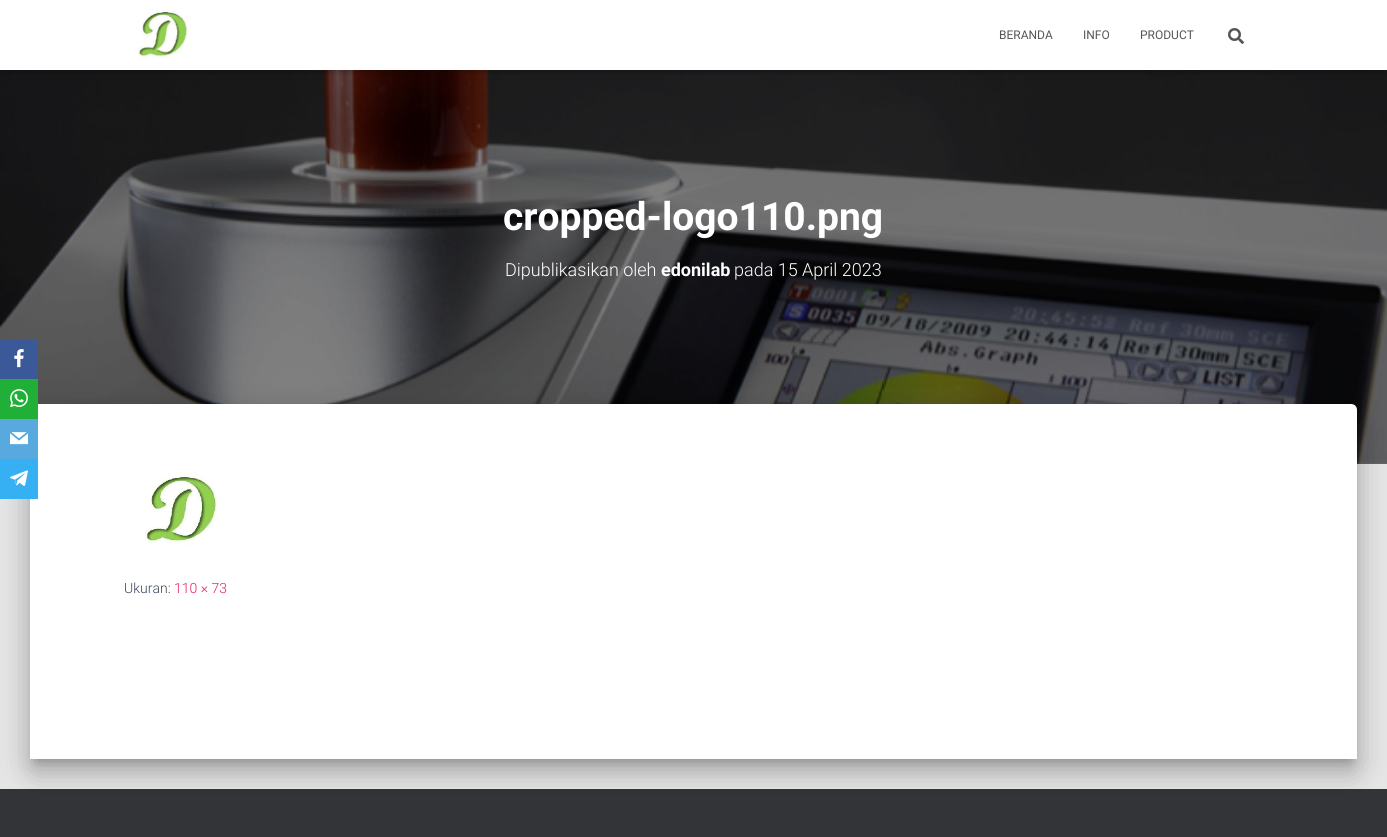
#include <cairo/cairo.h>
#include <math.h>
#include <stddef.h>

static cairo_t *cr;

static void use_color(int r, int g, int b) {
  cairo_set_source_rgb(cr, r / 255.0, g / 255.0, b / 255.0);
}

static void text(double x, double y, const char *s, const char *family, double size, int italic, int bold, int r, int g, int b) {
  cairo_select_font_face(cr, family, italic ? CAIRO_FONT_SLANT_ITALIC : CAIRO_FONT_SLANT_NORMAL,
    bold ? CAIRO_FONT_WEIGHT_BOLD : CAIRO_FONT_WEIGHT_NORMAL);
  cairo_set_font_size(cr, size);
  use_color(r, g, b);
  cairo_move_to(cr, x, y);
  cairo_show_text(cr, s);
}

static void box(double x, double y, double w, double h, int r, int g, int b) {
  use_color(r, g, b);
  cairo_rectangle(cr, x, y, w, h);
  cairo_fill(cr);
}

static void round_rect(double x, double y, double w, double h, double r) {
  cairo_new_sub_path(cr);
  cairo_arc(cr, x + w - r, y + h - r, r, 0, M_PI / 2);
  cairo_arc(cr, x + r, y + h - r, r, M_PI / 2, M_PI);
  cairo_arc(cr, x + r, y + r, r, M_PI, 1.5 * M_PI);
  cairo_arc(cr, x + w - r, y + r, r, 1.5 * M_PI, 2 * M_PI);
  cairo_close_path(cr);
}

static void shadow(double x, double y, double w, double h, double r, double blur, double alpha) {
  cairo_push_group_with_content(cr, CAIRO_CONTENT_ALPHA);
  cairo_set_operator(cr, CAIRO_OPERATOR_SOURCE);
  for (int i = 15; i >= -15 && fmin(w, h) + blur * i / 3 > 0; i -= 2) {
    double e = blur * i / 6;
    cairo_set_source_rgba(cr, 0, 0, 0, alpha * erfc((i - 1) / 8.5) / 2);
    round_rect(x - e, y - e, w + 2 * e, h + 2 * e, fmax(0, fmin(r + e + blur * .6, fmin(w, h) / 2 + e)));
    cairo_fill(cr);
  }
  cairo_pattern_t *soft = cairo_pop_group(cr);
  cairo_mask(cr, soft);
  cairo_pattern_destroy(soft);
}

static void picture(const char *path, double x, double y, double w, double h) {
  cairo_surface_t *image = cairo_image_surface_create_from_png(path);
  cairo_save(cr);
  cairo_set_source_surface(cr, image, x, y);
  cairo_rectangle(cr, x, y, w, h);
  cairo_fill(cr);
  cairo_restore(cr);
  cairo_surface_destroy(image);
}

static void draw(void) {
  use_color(229, 229, 229);
  cairo_paint(cr);
  box(1357, 462, 30, 2, 115, 115, 115);
  picture("img_07.png", 0, 70, 1387, 394);
  box(0, 789, 1387, 48, 50, 52, 55);
  use_color(0, 0, 0);
  shadow(25, 405, 1337, 365, 11, 15, 0.12);
  box(0, 339, 38, 40, 59, 89, 152);
  picture("img_01.png", 14, 349, 10, 19);
  use_color(0, 0, 0);
  shadow(35, 417, 1317, 345, 1, 5, 0.2);
  shadow(28, 418, 1331, 359, 8, 12, 0.14);
  use_color(255, 255, 255);
  cairo_new_path(cr);
  cairo_move_to(cr, 36, 404);
  cairo_line_to(cr, 1351, 404);
  cairo_curve_to(cr, 1354.5, 404, 1357, 406.5, 1357, 410);
  cairo_line_to(cr, 1357, 759);
  cairo_line_to(cr, 30, 759);
  cairo_line_to(cr, 30, 410);
  cairo_curve_to(cr, 30, 406.5, 32.5, 404, 36, 404);
  cairo_close_path(cr);
  cairo_fill(cr);
  box(0, 379, 38, 40, 32, 176, 56);
  picture("img_02.png", 10, 389, 18, 19);
  box(0, 419, 38, 40, 88, 169, 222);
  picture("img_03.png", 10, 432, 18, 13);
  box(0, 459, 38, 40, 54, 175, 243);
  picture("img_04.png", 10, 470, 18, 16);
  use_color(0, 0, 0);
  shadow(2, 6, 1383, 66, 0, 2.5, 0.1);
  shadow(0, 1, 1387, 70, 0, 5, 0.12);
  shadow(6, 7, 1375, 58, 0, 5, 0.42);
  box(0, 0, 1387, 70, 255, 255, 255);
  picture("img_05.png", 138, 10, 51, 50);
  picture("img_06.png", 1228, 28, 16, 16);
  picture("img_08.png", 145, 474, 75, 73);
  text(999, 39, "BERANDA", "Roboto", 12, 0, 0, 85, 85, 85);
  text(1083, 39, "INFO", "Roboto", 12, 0, 0, 85, 85, 85);
  text(1140, 39, "PRODUCT", "Roboto", 12, 0, 0, 85, 85, 85);
  text(503, 230, "cropped-logo110.png", "Roboto", 39, 0, 1, 255, 255, 255);
  text(505, 276, "Dipublikasikan oleh", "Roboto Light", 18, 0, 0, 255, 255, 255);
  text(661, 276, "edonilab", "Roboto", 18, 0, 1, 255, 255, 255);
  text(734, 276, "pada 15 April 2023", "Roboto Light", 18, 0, 0, 255, 255, 255);
  text(124, 593, "Ukuran:", "Roboto Light", 14, 0, 0, 60, 72, 88);
  text(174, 593, "110 × 73", "Roboto Light", 14, 0, 0, 233, 30, 99);
}

int main(void) {
  cairo_surface_t *surface = cairo_image_surface_create(CAIRO_FORMAT_RGB24, 1387, 837);
  cr = cairo_create(surface);
  cairo_font_options_t *options = cairo_font_options_create();
  cairo_font_options_set_hint_metrics(options, CAIRO_HINT_METRICS_OFF);
  cairo_font_options_set_hint_style(options, CAIRO_HINT_STYLE_NONE);
  cairo_set_font_options(cr, options);
  cairo_set_miter_limit(cr, 4);
  draw();
  cairo_surface_write_to_png(surface, "out.png");
  cairo_font_options_destroy(options);
  cairo_destroy(cr);
  cairo_surface_destroy(surface);
  return 0;
}
